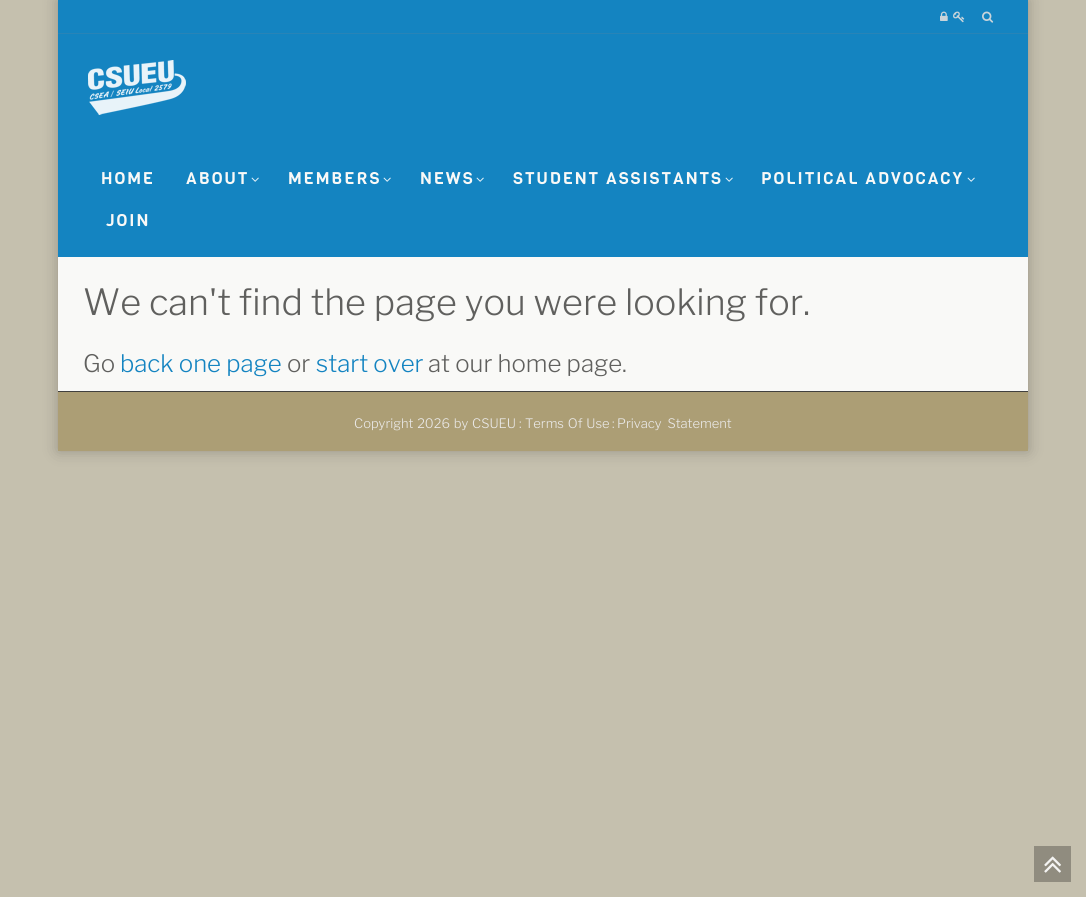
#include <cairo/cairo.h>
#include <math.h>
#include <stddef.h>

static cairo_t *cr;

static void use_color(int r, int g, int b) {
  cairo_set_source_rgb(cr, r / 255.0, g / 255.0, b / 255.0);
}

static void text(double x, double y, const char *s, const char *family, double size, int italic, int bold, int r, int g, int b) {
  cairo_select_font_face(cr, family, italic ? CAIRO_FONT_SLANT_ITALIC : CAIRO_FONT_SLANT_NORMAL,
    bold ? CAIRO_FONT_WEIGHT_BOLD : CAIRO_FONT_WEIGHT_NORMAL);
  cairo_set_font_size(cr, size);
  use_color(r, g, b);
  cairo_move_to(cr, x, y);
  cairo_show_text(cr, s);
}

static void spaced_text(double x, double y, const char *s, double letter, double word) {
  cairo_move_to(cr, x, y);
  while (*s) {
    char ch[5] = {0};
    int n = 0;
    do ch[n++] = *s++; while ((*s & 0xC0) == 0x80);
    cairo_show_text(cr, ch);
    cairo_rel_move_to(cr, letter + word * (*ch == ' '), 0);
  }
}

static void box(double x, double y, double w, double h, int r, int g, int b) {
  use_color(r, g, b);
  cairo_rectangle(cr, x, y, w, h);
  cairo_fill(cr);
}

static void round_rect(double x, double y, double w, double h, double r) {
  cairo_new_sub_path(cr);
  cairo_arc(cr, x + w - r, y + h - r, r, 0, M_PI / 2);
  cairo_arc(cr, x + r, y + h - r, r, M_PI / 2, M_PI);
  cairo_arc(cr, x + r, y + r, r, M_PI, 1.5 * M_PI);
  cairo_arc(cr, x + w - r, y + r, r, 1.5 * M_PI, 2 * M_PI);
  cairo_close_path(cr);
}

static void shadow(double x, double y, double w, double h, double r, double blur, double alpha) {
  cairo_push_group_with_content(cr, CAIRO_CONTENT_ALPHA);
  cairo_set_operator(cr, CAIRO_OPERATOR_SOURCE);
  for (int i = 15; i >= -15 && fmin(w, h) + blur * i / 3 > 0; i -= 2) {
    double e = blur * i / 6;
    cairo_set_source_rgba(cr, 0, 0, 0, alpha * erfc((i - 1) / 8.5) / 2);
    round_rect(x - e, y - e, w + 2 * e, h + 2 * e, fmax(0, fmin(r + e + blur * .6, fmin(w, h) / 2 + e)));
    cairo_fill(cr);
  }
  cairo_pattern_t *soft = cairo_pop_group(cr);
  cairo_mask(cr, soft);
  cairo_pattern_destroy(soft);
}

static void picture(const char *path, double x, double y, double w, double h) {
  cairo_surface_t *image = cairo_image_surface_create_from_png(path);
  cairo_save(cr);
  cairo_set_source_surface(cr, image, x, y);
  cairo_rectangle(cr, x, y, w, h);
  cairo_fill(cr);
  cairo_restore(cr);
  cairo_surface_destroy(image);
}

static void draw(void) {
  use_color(197, 192, 174);
  cairo_paint(cr);
  use_color(20, 19, 17);
  shadow(58, 0, 970, 451, 0, 7.5, 0.26);
  box(58, 0, 970, 257, 20, 132, 193);
  picture("img_01.png", 940, 11, 8, 10);
  picture("img_02.png", 953, 11, 12, 12);
  picture("img_03.png", 982, 11, 12, 12);
  box(58, 33, 970, 1, 40, 132, 183);
  picture("img_04.png", 88, 60, 98, 55);
  picture("img_05.png", 251, 177, 8, 5);
  picture("img_05.png", 383, 177, 8, 5);
  picture("img_05.png", 476, 177, 8, 5);
  picture("img_05.png", 725, 177, 8, 5);
  picture("img_05.png", 967, 177, 8, 5);
  box(58, 257, 970, 134, 249, 249, 247);
  box(58, 392, 970, 59, 172, 158, 117);
  box(58, 391, 970, 1, 65, 64, 62);
  box(1034, 846, 37, 36, 144, 140, 127);
  picture("img_06.png", 1044, 856, 17, 17);
  cairo_select_font_face(cr, "Viga", CAIRO_FONT_SLANT_NORMAL, CAIRO_FONT_WEIGHT_NORMAL);
  cairo_set_font_size(cr, 16.75);
  use_color(249, 249, 247);
  spaced_text(101, 184, "HOME", 2, 0);
  spaced_text(186, 184, "ABOUT", 2, 0);
  spaced_text(288, 184, "MEMBERS", 2, 0);
  spaced_text(420, 184, "NEWS", 2, 0);
  spaced_text(513, 184, "STUDENT ASSISTANTS", 2, 0);
  spaced_text(761, 184, "POLITICAL ADVOCACY", 2, 0);
  spaced_text(106, 226, "JOIN", 2, 0);
  text(83, 315, "We can't find the page you were looking for.", "Libre Franklin Light", 36, 0, 0, 96, 96, 94);
  text(83, 372, "Go", "Libre Franklin Light", 24, 0, 0, 96, 96, 94);
  text(120, 372, "back one page", "Libre Franklin Light", 24, 0, 0, 20, 132, 193);
  text(287, 372, "or", "Libre Franklin Light", 24, 0, 0, 96, 96, 94);
  text(316, 372, "start over", "Libre Franklin Light", 24, 0, 0, 20, 132, 193);
  text(428, 372, "at our home page.", "Libre Franklin Light", 24, 0, 0, 96, 96, 94);
  cairo_set_font_size(cr, 13);
  use_color(234, 233, 232);
  spaced_text(354, 428, "Copyright 2026 by CSUEU", 0, 1);
  text(519, 428, ":", "Libre Franklin Light", 13, 0, 0, 234, 233, 232);
  spaced_text(525, 428, "Terms Of Use", 0, 1);
  text(612, 428, ":", "Libre Franklin Light", 13, 0, 0, 234, 233, 232);
  spaced_text(617, 428, "Privacy Statement", 0, 3);
}

int main(void) {
  cairo_surface_t *surface = cairo_image_surface_create(CAIRO_FORMAT_RGB24, 1086, 897);
  cr = cairo_create(surface);
  cairo_font_options_t *options = cairo_font_options_create();
  cairo_font_options_set_hint_metrics(options, CAIRO_HINT_METRICS_OFF);
  cairo_font_options_set_hint_style(options, CAIRO_HINT_STYLE_NONE);
  cairo_set_font_options(cr, options);
  cairo_set_miter_limit(cr, 4);
  draw();
  cairo_surface_write_to_png(surface, "out.png");
  cairo_font_options_destroy(options);
  cairo_destroy(cr);
  cairo_surface_destroy(surface);
  return 0;
}
